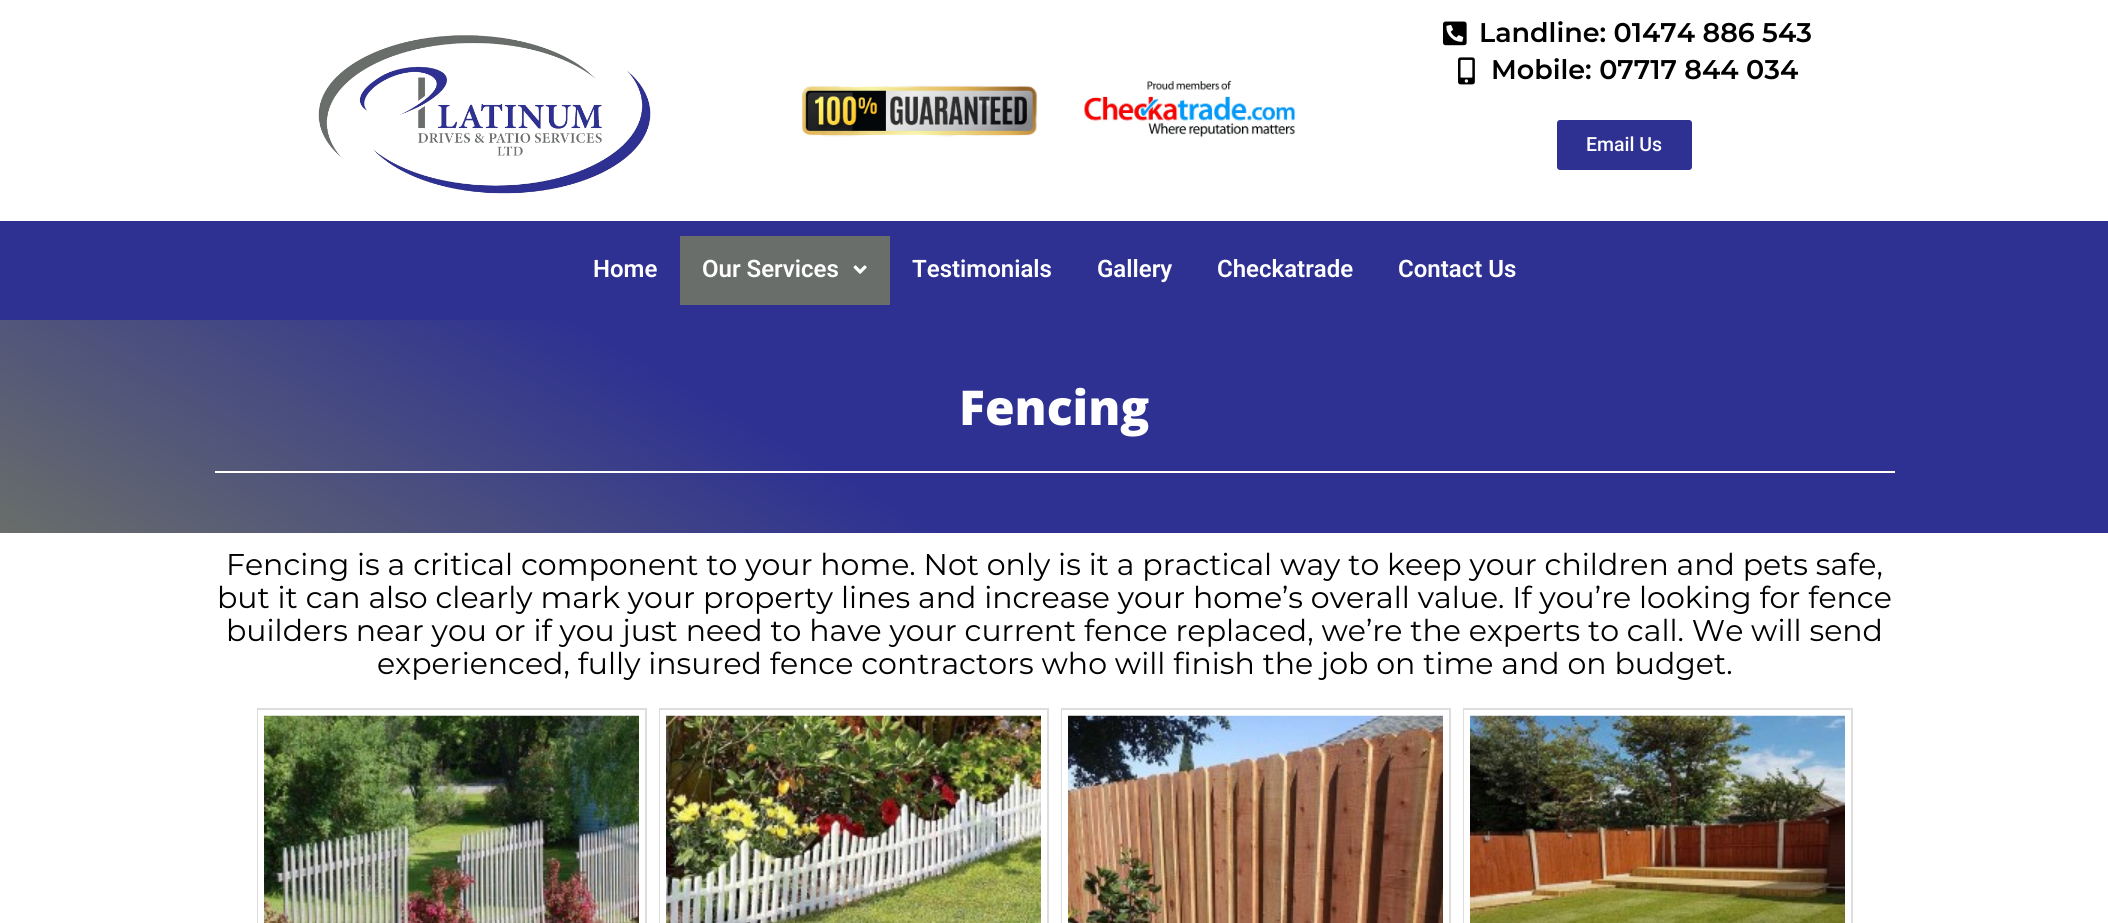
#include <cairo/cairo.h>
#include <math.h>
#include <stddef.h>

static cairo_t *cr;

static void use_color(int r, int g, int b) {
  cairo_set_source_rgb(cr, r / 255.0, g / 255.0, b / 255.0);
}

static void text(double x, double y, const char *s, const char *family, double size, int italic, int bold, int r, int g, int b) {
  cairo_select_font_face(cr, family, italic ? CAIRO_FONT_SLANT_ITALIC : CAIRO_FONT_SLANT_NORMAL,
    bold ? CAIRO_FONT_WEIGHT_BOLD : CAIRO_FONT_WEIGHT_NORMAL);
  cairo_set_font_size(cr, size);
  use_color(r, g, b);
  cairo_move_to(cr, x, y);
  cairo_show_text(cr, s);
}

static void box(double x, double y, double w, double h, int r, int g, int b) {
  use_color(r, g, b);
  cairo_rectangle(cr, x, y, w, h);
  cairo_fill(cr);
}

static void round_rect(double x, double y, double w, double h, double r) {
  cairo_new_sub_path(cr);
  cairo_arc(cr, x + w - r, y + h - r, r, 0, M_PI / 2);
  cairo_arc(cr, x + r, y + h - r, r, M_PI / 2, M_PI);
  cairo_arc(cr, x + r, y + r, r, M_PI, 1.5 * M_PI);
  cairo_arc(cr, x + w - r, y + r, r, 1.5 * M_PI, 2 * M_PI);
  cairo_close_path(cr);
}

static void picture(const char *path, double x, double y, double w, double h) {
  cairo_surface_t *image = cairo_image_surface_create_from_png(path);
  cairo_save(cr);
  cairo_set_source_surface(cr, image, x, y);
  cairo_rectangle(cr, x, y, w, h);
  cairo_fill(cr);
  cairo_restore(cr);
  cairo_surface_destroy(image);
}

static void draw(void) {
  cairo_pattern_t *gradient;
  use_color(255, 255, 255);
  cairo_paint(cr);
  picture("img_01.png", 318, 35, 333, 159);
  picture("img_02.png", 801, 85, 237, 52);
  picture("img_03.png", 1084, 80, 212, 58);
  picture("img_04.png", 1443, 21, 24, 25);
  picture("img_05.png", 1458, 57, 17, 28);
  use_color(46, 49, 146);
  round_rect(1557, 120, 135, 50, 3);
  cairo_fill(cr);
  box(0, 221, 2108, 99, 46, 49, 146);
  box(680, 236, 210, 69, 105, 110, 106);
  picture("img_06.png", 853, 265, 14, 9);
  gradient = cairo_pattern_create_linear(1364, -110, 745, 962);
  cairo_pattern_add_color_stop_rgba(gradient, 0.62, 0.18, 0.192, 0.573, 1);
  cairo_pattern_add_color_stop_rgba(gradient, 1, 0.412, 0.431, 0.416, 1);
  cairo_set_source(cr, gradient);
  cairo_pattern_destroy(gradient);
  cairo_rectangle(cr, 0, 320, 2108, 213);
  cairo_fill(cr);
  box(215, 471, 1680, 2, 255, 255, 255);
  cairo_rectangle(cr, 258, 709, 388, 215);
  use_color(221, 221, 221);
  cairo_stroke(cr);
  box(258, 710, 1, 213, 255, 255, 255);
  picture("img_07.png", 264, 715, 375, 208);
  cairo_rectangle(cr, 660, 709, 388, 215);
  use_color(221, 221, 221);
  cairo_stroke(cr);
  box(660, 710, 1, 213, 255, 255, 255);
  picture("img_08.png", 666, 715, 375, 208);
  cairo_rectangle(cr, 1062, 709, 388, 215);
  use_color(221, 221, 221);
  cairo_stroke(cr);
  box(1062, 710, 1, 213, 255, 255, 255);
  picture("img_09.png", 1068, 715, 375, 208);
  cairo_rectangle(cr, 1464, 709, 388, 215);
  use_color(221, 221, 221);
  cairo_stroke(cr);
  box(1464, 710, 1, 213, 255, 255, 255);
  picture("img_10.png", 1470, 715, 375, 208);
  text(1479, 42, "Landline: 01474 886 543", "Montserrat SemiBold", 27, 0, 0, 0, 0, 0);
  text(1491, 79, "Mobile: 07717 844 034", "Montserrat SemiBold", 27, 0, 0, 0, 0, 0);
  text(1586, 151, "Email Us", "Roboto Medium", 19.5, 0, 0, 255, 255, 255);
  text(593, 277, "Home", "Roboto SemiBold", 24, 0, 0, 255, 255, 255);
  text(702, 277, "Our Services", "Roboto SemiBold", 24, 0, 0, 255, 255, 255);
  text(912, 277, "Testimonials", "Roboto SemiBold", 24, 0, 0, 255, 255, 255);
  text(1097, 277, "Gallery", "Roboto SemiBold", 24, 0, 0, 255, 255, 255);
  text(1217, 277, "Checkatrade", "Roboto SemiBold", 24, 0, 0, 255, 255, 255);
  text(1398, 277, "Contact Us", "Roboto SemiBold", 24, 0, 0, 255, 255, 255);
  text(959, 425, "Fencing", "Open Sans ExtraBold", 48, 0, 0, 255, 255, 255);
  text(226, 575, "Fencing is a critical component to your home. Not only is it a practical way to keep your children and pets safe,", "Montserrat", 30, 0, 0, 0, 0, 0);
  text(217, 608, "but it can also clearly mark your property lines and increase your home’s overall value. If you’re looking for fence", "Montserrat", 30, 0, 0, 0, 0, 0);
  text(226, 641, "builders near you or if you just need to have your current fence replaced, we’re the experts to call. We will send", "Montserrat", 30, 0, 0, 0, 0, 0);
  text(377, 674, "experienced, fully insured fence contractors who will finish the job on time and on budget.", "Montserrat", 30, 0, 0, 0, 0, 0);
}

int main(void) {
  cairo_surface_t *surface = cairo_image_surface_create(CAIRO_FORMAT_RGB24, 2108, 923);
  cr = cairo_create(surface);
  cairo_font_options_t *options = cairo_font_options_create();
  cairo_font_options_set_hint_metrics(options, CAIRO_HINT_METRICS_OFF);
  cairo_font_options_set_hint_style(options, CAIRO_HINT_STYLE_NONE);
  cairo_set_font_options(cr, options);
  cairo_set_miter_limit(cr, 4);
  draw();
  cairo_surface_write_to_png(surface, "out.png");
  cairo_font_options_destroy(options);
  cairo_destroy(cr);
  cairo_surface_destroy(surface);
  return 0;
}
